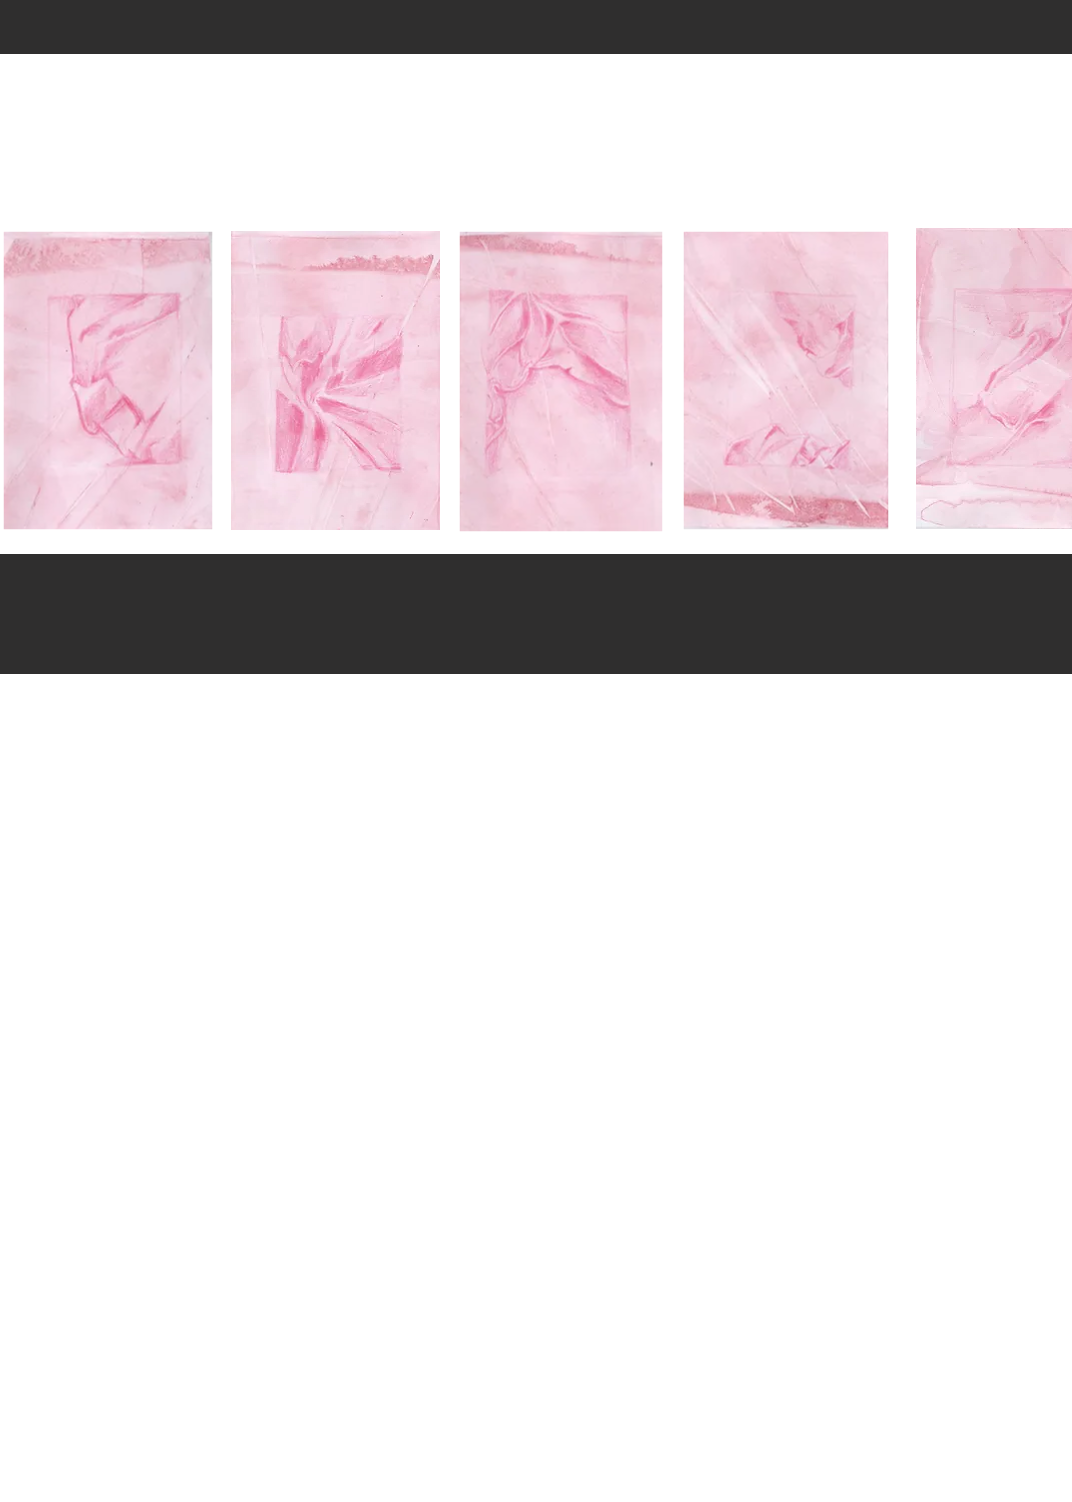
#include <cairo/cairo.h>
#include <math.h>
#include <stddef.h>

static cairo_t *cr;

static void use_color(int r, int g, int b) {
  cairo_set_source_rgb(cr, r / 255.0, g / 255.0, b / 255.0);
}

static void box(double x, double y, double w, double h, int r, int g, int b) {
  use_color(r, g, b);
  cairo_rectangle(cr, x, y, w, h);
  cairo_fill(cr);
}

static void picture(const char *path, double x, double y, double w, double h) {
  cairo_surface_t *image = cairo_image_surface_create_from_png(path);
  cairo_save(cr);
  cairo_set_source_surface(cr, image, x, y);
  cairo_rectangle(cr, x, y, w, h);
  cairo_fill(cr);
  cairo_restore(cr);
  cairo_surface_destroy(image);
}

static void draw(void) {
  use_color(255, 255, 255);
  cairo_paint(cr);
  box(0, 0, 1072, 54, 47, 46, 46);
  picture("img_01.png", 3, 231, 210, 299);
  picture("img_02.png", 231, 231, 209, 299);
  picture("img_03.png", 459, 231, 204, 301);
  picture("img_04.png", 683, 231, 206, 299);
  picture("img_05.png", 916, 228, 156, 301);
  box(0, 554, 1072, 120, 47, 46, 46);
}

int main(void) {
  cairo_surface_t *surface = cairo_image_surface_create(CAIRO_FORMAT_RGB24, 1072, 1502);
  cr = cairo_create(surface);
  cairo_font_options_t *options = cairo_font_options_create();
  cairo_font_options_set_hint_metrics(options, CAIRO_HINT_METRICS_OFF);
  cairo_font_options_set_hint_style(options, CAIRO_HINT_STYLE_NONE);
  cairo_set_font_options(cr, options);
  cairo_set_miter_limit(cr, 4);
  draw();
  cairo_surface_write_to_png(surface, "out.png");
  cairo_font_options_destroy(options);
  cairo_destroy(cr);
  cairo_surface_destroy(surface);
  return 0;
}
